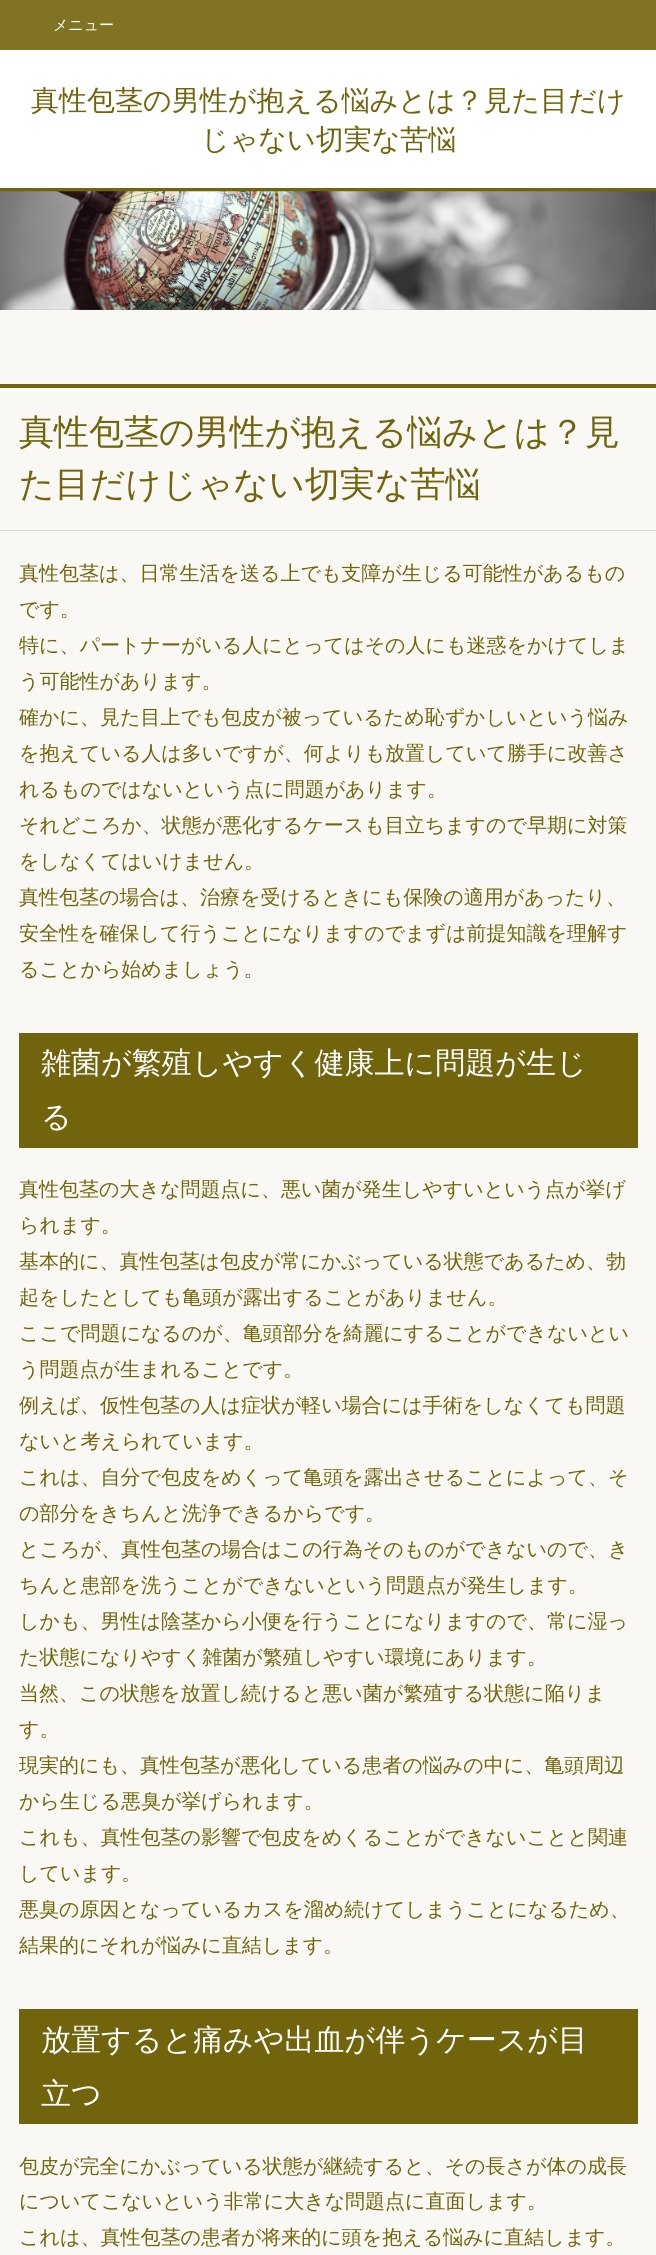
#include <cairo/cairo.h>
#include <math.h>
#include <stddef.h>

static cairo_t *cr;

static void use_color(int r, int g, int b) {
  cairo_set_source_rgb(cr, r / 255.0, g / 255.0, b / 255.0);
}

static void text(double x, double y, const char *s, const char *family, double size, int italic, int bold, int r, int g, int b) {
  cairo_select_font_face(cr, family, italic ? CAIRO_FONT_SLANT_ITALIC : CAIRO_FONT_SLANT_NORMAL,
    bold ? CAIRO_FONT_WEIGHT_BOLD : CAIRO_FONT_WEIGHT_NORMAL);
  cairo_set_font_size(cr, size);
  use_color(r, g, b);
  cairo_move_to(cr, x, y);
  cairo_show_text(cr, s);
}

static void box(double x, double y, double w, double h, int r, int g, int b) {
  use_color(r, g, b);
  cairo_rectangle(cr, x, y, w, h);
  cairo_fill(cr);
}

static void picture(const char *path, double x, double y, double w, double h) {
  cairo_surface_t *image = cairo_image_surface_create_from_png(path);
  cairo_save(cr);
  cairo_set_source_surface(cr, image, x, y);
  cairo_rectangle(cr, x, y, w, h);
  cairo_fill(cr);
  cairo_restore(cr);
  cairo_surface_destroy(image);
}

static void draw(void) {
  use_color(249, 248, 244);
  cairo_paint(cr);
  box(0, 50, 656, 138, 255, 255, 255);
  box(0, 0, 656, 50, 128, 116, 36);
  box(0, 188, 656, 4, 114, 100, 12);
  picture("img_01.png", 0, 191, 656, 119);
  box(0, 384, 656, 4, 114, 100, 12);
  box(0, 530, 656, 1, 215, 213, 202);
  box(19, 1033, 619, 115, 114, 100, 12);
  box(19, 2009, 619, 115, 114, 100, 12);
  text(53, 30, "メニュー", "WenQuanYi Zen Hei Medium", 15, 0, 0, 255, 255, 255);
  text(31, 110, "真性包茎の男性が抱える悩みとは？見た目だけ", "WenQuanYi Zen Hei Medium", 28, 0, 0, 114, 100, 12);
  text(201, 149, "じゃない切実な苦悩", "WenQuanYi Zen Hei Medium", 28, 0, 0, 114, 100, 12);
  text(19, 444, "真性包茎の男性が抱える悩みとは？見", "WenQuanYi Zen Hei Medium", 35, 0, 0, 114, 100, 12);
  text(19, 496, "た目だけじゃない切実な苦悩", "WenQuanYi Zen Hei Medium", 35, 0, 0, 114, 100, 12);
  text(19, 580, "真性包茎は、日常生活を送る上でも支障が生じる可能性があるもの", "WenQuanYi Zen Hei Medium", 20, 0, 0, 114, 100, 12);
  text(19, 616, "です。", "WenQuanYi Zen Hei Medium", 20, 0, 0, 114, 100, 12);
  text(19, 652, "特に、パートナーがいる人にとってはその人にも迷惑をかけてしま", "WenQuanYi Zen Hei Medium", 20, 0, 0, 114, 100, 12);
  text(19, 688, "う可能性があります。", "WenQuanYi Zen Hei Medium", 20, 0, 0, 114, 100, 12);
  text(19, 724, "確かに、見た目上でも包皮が被っているため恥ずかしいという悩み", "WenQuanYi Zen Hei Medium", 20, 0, 0, 114, 100, 12);
  text(19, 760, "を抱えている人は多いですが、何よりも放置していて勝手に改善さ", "WenQuanYi Zen Hei Medium", 20, 0, 0, 114, 100, 12);
  text(19, 796, "れるものではないという点に問題があります。", "WenQuanYi Zen Hei Medium", 20, 0, 0, 114, 100, 12);
  text(19, 832, "それどころか、状態が悪化するケースも目立ちますので早期に対策", "WenQuanYi Zen Hei Medium", 20, 0, 0, 114, 100, 12);
  text(19, 868, "をしなくてはいけません。", "WenQuanYi Zen Hei Medium", 20, 0, 0, 114, 100, 12);
  text(19, 904, "真性包茎の場合は、治療を受けるときにも保険の適用があったり、", "WenQuanYi Zen Hei Medium", 20, 0, 0, 114, 100, 12);
  text(19, 940, "安全性を確保して行うことになりますのでまずは前提知識を理解す", "WenQuanYi Zen Hei Medium", 20, 0, 0, 114, 100, 12);
  text(19, 976, "ることから始めましょう。", "WenQuanYi Zen Hei Medium", 20, 0, 0, 114, 100, 12);
  text(41, 1073, "雑菌が繁殖しやすく健康上に問題が生じ", "WenQuanYi Zen Hei Medium", 30, 0, 0, 255, 255, 255);
  text(41, 1127, "る", "WenQuanYi Zen Hei Medium", 30, 0, 0, 255, 255, 255);
  text(19, 1196, "真性包茎の大きな問題点に、悪い菌が発生しやすいという点が挙げ", "WenQuanYi Zen Hei Medium", 20, 0, 0, 114, 100, 12);
  text(19, 1232, "られます。", "WenQuanYi Zen Hei Medium", 20, 0, 0, 114, 100, 12);
  text(19, 1268, "基本的に、真性包茎は包皮が常にかぶっている状態であるため、勃", "WenQuanYi Zen Hei Medium", 20, 0, 0, 114, 100, 12);
  text(19, 1304, "起をしたとしても亀頭が露出することがありません。", "WenQuanYi Zen Hei Medium", 20, 0, 0, 114, 100, 12);
  text(19, 1340, "ここで問題になるのが、亀頭部分を綺麗にすることができないとい", "WenQuanYi Zen Hei Medium", 20, 0, 0, 114, 100, 12);
  text(19, 1376, "う問題点が生まれることです。", "WenQuanYi Zen Hei Medium", 20, 0, 0, 114, 100, 12);
  text(19, 1412, "例えば、仮性包茎の人は症状が軽い場合には手術をしなくても問題", "WenQuanYi Zen Hei Medium", 20, 0, 0, 114, 100, 12);
  text(19, 1448, "ないと考えられています。", "WenQuanYi Zen Hei Medium", 20, 0, 0, 114, 100, 12);
  text(19, 1484, "これは、自分で包皮をめくって亀頭を露出させることによって、そ", "WenQuanYi Zen Hei Medium", 20, 0, 0, 114, 100, 12);
  text(19, 1520, "の部分をきちんと洗浄できるからです。", "WenQuanYi Zen Hei Medium", 20, 0, 0, 114, 100, 12);
  text(19, 1556, "ところが、真性包茎の場合はこの行為そのものができないので、き", "WenQuanYi Zen Hei Medium", 20, 0, 0, 114, 100, 12);
  text(19, 1592, "ちんと患部を洗うことができないという問題点が発生します。", "WenQuanYi Zen Hei Medium", 20, 0, 0, 114, 100, 12);
  text(19, 1628, "しかも、男性は陰茎から小便を行うことになりますので、常に湿っ", "WenQuanYi Zen Hei Medium", 20, 0, 0, 114, 100, 12);
  text(19, 1664, "た状態になりやすく雑菌が繁殖しやすい環境にあります。", "WenQuanYi Zen Hei Medium", 20, 0, 0, 114, 100, 12);
  text(19, 1700, "当然、この状態を放置し続けると悪い菌が繁殖する状態に陥りま", "WenQuanYi Zen Hei Medium", 20, 0, 0, 114, 100, 12);
  text(19, 1736, "す。", "WenQuanYi Zen Hei Medium", 20, 0, 0, 114, 100, 12);
  text(19, 1772, "現実的にも、真性包茎が悪化している患者の悩みの中に、亀頭周辺", "WenQuanYi Zen Hei Medium", 20, 0, 0, 114, 100, 12);
  text(19, 1808, "から生じる悪臭が挙げられます。", "WenQuanYi Zen Hei Medium", 20, 0, 0, 114, 100, 12);
  text(19, 1844, "これも、真性包茎の影響で包皮をめくることができないことと関連", "WenQuanYi Zen Hei Medium", 20, 0, 0, 114, 100, 12);
  text(19, 1880, "しています。", "WenQuanYi Zen Hei Medium", 20, 0, 0, 114, 100, 12);
  text(19, 1916, "悪臭の原因となっているカスを溜め続けてしまうことになるため、", "WenQuanYi Zen Hei Medium", 20, 0, 0, 114, 100, 12);
  text(19, 1952, "結果的にそれが悩みに直結します。", "WenQuanYi Zen Hei Medium", 20, 0, 0, 114, 100, 12);
  text(41, 2050, "放置すると痛みや出血が伴うケースが目", "WenQuanYi Zen Hei Medium", 30, 0, 0, 255, 255, 255);
  text(41, 2104, "立つ", "WenQuanYi Zen Hei Medium", 30, 0, 0, 255, 255, 255);
  text(19, 2173, "包皮が完全にかぶっている状態が継続すると、その長さが体の成長", "WenQuanYi Zen Hei Medium", 20, 0, 0, 114, 100, 12);
  text(19, 2208, "についてこないという非常に大きな問題点に直面します。", "WenQuanYi Zen Hei Medium", 20, 0, 0, 114, 100, 12);
  text(19, 2244, "これは、真性包茎の患者が将来的に頭を抱える悩みに直結します。", "WenQuanYi Zen Hei Medium", 20, 0, 0, 114, 100, 12);
}

int main(void) {
  cairo_surface_t *surface = cairo_image_surface_create(CAIRO_FORMAT_RGB24, 656, 2255);
  cr = cairo_create(surface);
  cairo_font_options_t *options = cairo_font_options_create();
  cairo_font_options_set_hint_metrics(options, CAIRO_HINT_METRICS_OFF);
  cairo_font_options_set_hint_style(options, CAIRO_HINT_STYLE_NONE);
  cairo_set_font_options(cr, options);
  cairo_set_miter_limit(cr, 4);
  draw();
  cairo_surface_write_to_png(surface, "out.png");
  cairo_font_options_destroy(options);
  cairo_destroy(cr);
  cairo_surface_destroy(surface);
  return 0;
}
